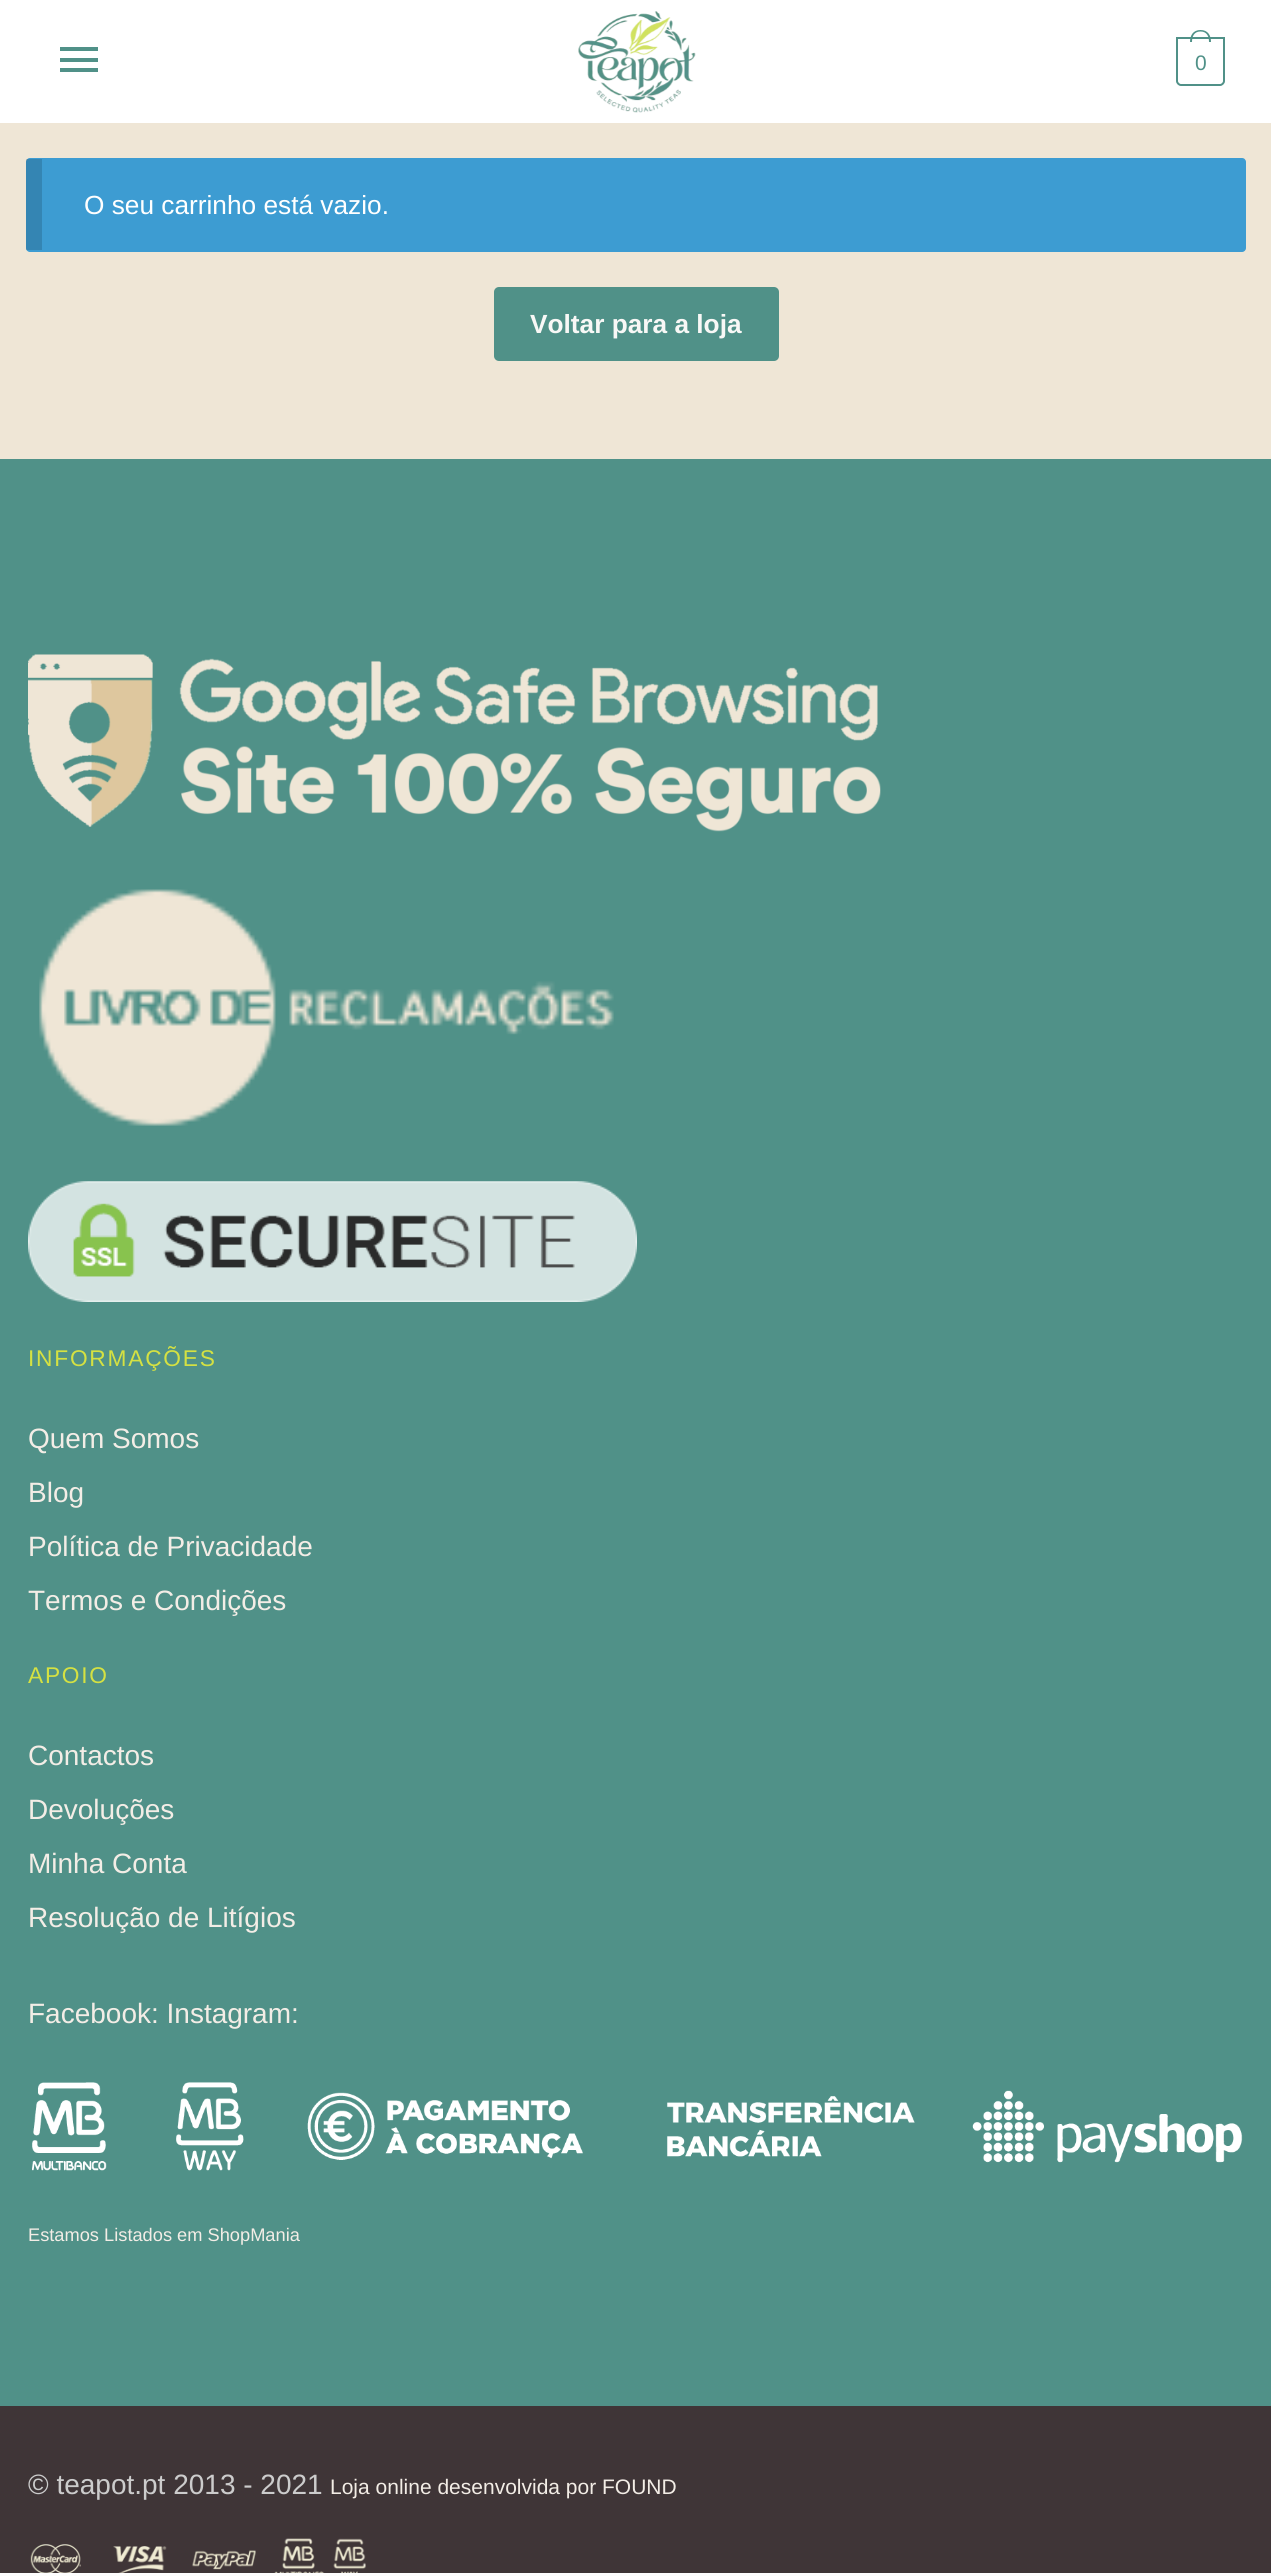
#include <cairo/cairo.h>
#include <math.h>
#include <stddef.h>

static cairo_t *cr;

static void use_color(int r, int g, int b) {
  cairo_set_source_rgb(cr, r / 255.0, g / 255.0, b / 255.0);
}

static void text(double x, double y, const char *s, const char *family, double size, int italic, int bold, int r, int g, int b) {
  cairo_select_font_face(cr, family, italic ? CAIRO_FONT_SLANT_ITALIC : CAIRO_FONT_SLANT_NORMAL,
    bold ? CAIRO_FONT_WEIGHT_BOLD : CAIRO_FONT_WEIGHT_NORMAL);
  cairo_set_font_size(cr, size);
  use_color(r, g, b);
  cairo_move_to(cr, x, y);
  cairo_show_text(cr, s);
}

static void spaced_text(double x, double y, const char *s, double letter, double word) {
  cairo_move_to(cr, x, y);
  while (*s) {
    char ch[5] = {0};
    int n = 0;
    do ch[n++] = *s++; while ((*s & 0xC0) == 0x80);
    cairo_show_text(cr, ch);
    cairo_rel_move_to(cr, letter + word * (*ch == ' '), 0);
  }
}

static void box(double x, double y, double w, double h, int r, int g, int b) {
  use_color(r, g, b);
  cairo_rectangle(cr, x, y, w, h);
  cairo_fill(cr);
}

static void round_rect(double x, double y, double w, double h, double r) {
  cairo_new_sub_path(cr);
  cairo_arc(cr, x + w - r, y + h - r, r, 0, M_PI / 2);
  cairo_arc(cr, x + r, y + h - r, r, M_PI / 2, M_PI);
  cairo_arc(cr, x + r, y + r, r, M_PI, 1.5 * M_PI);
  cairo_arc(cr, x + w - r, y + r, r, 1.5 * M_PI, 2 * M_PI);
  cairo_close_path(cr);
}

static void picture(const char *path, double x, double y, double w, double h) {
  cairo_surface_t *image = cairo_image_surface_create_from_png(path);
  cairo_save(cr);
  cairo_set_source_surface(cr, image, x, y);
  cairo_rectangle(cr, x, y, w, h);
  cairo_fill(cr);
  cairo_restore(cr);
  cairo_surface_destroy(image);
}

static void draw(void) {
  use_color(239, 230, 214);
  cairo_paint(cr);
  box(0, 0, 1271, 123, 255, 255, 255);
  box(60, 47, 38, 4, 80, 145, 136);
  box(60, 58, 38, 4, 80, 145, 136);
  box(60, 68, 38, 4, 80, 145, 136);
  picture("img_01.png", 578, 11, 118, 102);
  cairo_new_path(cr);
  cairo_move_to(cr, 1177, 38);
  cairo_line_to(cr, 1224, 38);
  cairo_line_to(cr, 1224, 81);
  cairo_curve_to(cr, 1224, 83, 1222, 85, 1220, 85);
  cairo_line_to(cr, 1181, 85);
  cairo_curve_to(cr, 1179, 85, 1177, 83, 1177, 81);
  cairo_close_path(cr);
  cairo_stroke(cr);
  cairo_set_fill_rule(cr, CAIRO_FILL_RULE_EVEN_ODD);
  cairo_new_path(cr);
  cairo_move_to(cr, 1200.5, 30);
  cairo_curve_to(cr, 1208, 30, 1211, 35.5, 1211, 42);
  cairo_line_to(cr, 1190, 42);
  cairo_curve_to(cr, 1190, 35.5, 1193, 30, 1200.5, 30);
  cairo_close_path(cr);
  cairo_move_to(cr, 1200.5, 31.5);
  cairo_curve_to(cr, 1207, 31.5, 1209, 36.5, 1209, 42);
  cairo_line_to(cr, 1192, 42);
  cairo_curve_to(cr, 1192, 36.5, 1194, 31.5, 1200.5, 31.5);
  cairo_close_path(cr);
  cairo_fill(cr);
  use_color(61, 156, 210);
  round_rect(26, 158, 1220, 94, 4);
  cairo_fill(cr);
  cairo_set_source_rgba(cr, 0, 0, 0, 0.15);
  cairo_rectangle(cr, 26, 159, 16, 91);
  cairo_fill(cr);
  use_color(80, 145, 136);
  round_rect(494, 287, 285, 74, 5);
  cairo_fill(cr);
  box(0, 459, 1271, 1947, 80, 145, 136);
  picture("img_02.png", 28, 654, 853, 178);
  picture("img_03.png", 39, 889, 575, 237);
  picture("img_04.png", 28, 1181, 609, 121);
  picture("img_05.png", 32, 2082, 1211, 89);
  box(0, 2406, 1271, 167, 63, 53, 55);
  picture("img_06.png", 30, 2538, 336, 35);
  cairo_select_font_face(cr, "Liberation Sans", CAIRO_FONT_SLANT_NORMAL, CAIRO_FONT_WEIGHT_NORMAL);
  cairo_set_font_size(cr, 21);
  use_color(80, 145, 136);
  spaced_text(1195, 70, "0", -1, 0);
  text(84, 214, "O seu carrinho está vazio.", "Liberation Sans", 26.25, 0, 0, 255, 255, 255);
  text(530, 333, "Voltar para a loja", "Liberation Sans", 26.25, 0, 1, 248, 248, 246);
  cairo_select_font_face(cr, "Liberation Sans", CAIRO_FONT_SLANT_NORMAL, CAIRO_FONT_WEIGHT_NORMAL);
  cairo_set_font_size(cr, 22.75);
  use_color(213, 225, 66);
  spaced_text(28, 1366, "INFORMAÇÕES", 1.75, 0);
  text(28, 1448, "Quem Somos", "Liberation Sans", 28, 0, 0, 243, 237, 230);
  text(28, 1502, "Blog", "Liberation Sans", 28, 0, 0, 243, 237, 230);
  text(28, 1556, "Política de Privacidade", "Liberation Sans", 28, 0, 0, 243, 237, 230);
  text(28, 1610, "Termos e Condições", "Liberation Sans", 28, 0, 0, 243, 237, 230);
  cairo_set_font_size(cr, 22.75);
  use_color(213, 225, 66);
  spaced_text(28, 1683, "APOIO", 1.75, 0);
  text(28, 1765, "Contactos", "Liberation Sans", 28, 0, 0, 243, 237, 230);
  text(28, 1819, "Devoluções", "Liberation Sans", 28, 0, 0, 243, 237, 230);
  text(28, 1873, "Minha Conta", "Liberation Sans", 28, 0, 0, 243, 237, 230);
  text(28, 1927, "Resolução de Litígios", "Liberation Sans", 28, 0, 0, 243, 237, 230);
  text(28, 2023, "Facebook: Instagram:", "Liberation Sans", 28, 0, 0, 243, 237, 230);
  text(28, 2241, "Estamos Listados em ShopMania", "Liberation Sans", 18.25, 0, 0, 243, 237, 230);
  text(28, 2494, "© teapot.pt 2013 - 2021", "Liberation Sans", 28, 0, 0, 204, 204, 204);
  text(330, 2494, "Loja online desenvolvida por FOUND", "Liberation Sans", 21, 0, 0, 243, 237, 230);
}

int main(void) {
  cairo_surface_t *surface = cairo_image_surface_create(CAIRO_FORMAT_RGB24, 1271, 2573);
  cr = cairo_create(surface);
  cairo_font_options_t *options = cairo_font_options_create();
  cairo_font_options_set_hint_metrics(options, CAIRO_HINT_METRICS_OFF);
  cairo_font_options_set_hint_style(options, CAIRO_HINT_STYLE_NONE);
  cairo_set_font_options(cr, options);
  cairo_set_miter_limit(cr, 4);
  draw();
  cairo_surface_write_to_png(surface, "out.png");
  cairo_font_options_destroy(options);
  cairo_destroy(cr);
  cairo_surface_destroy(surface);
  return 0;
}
